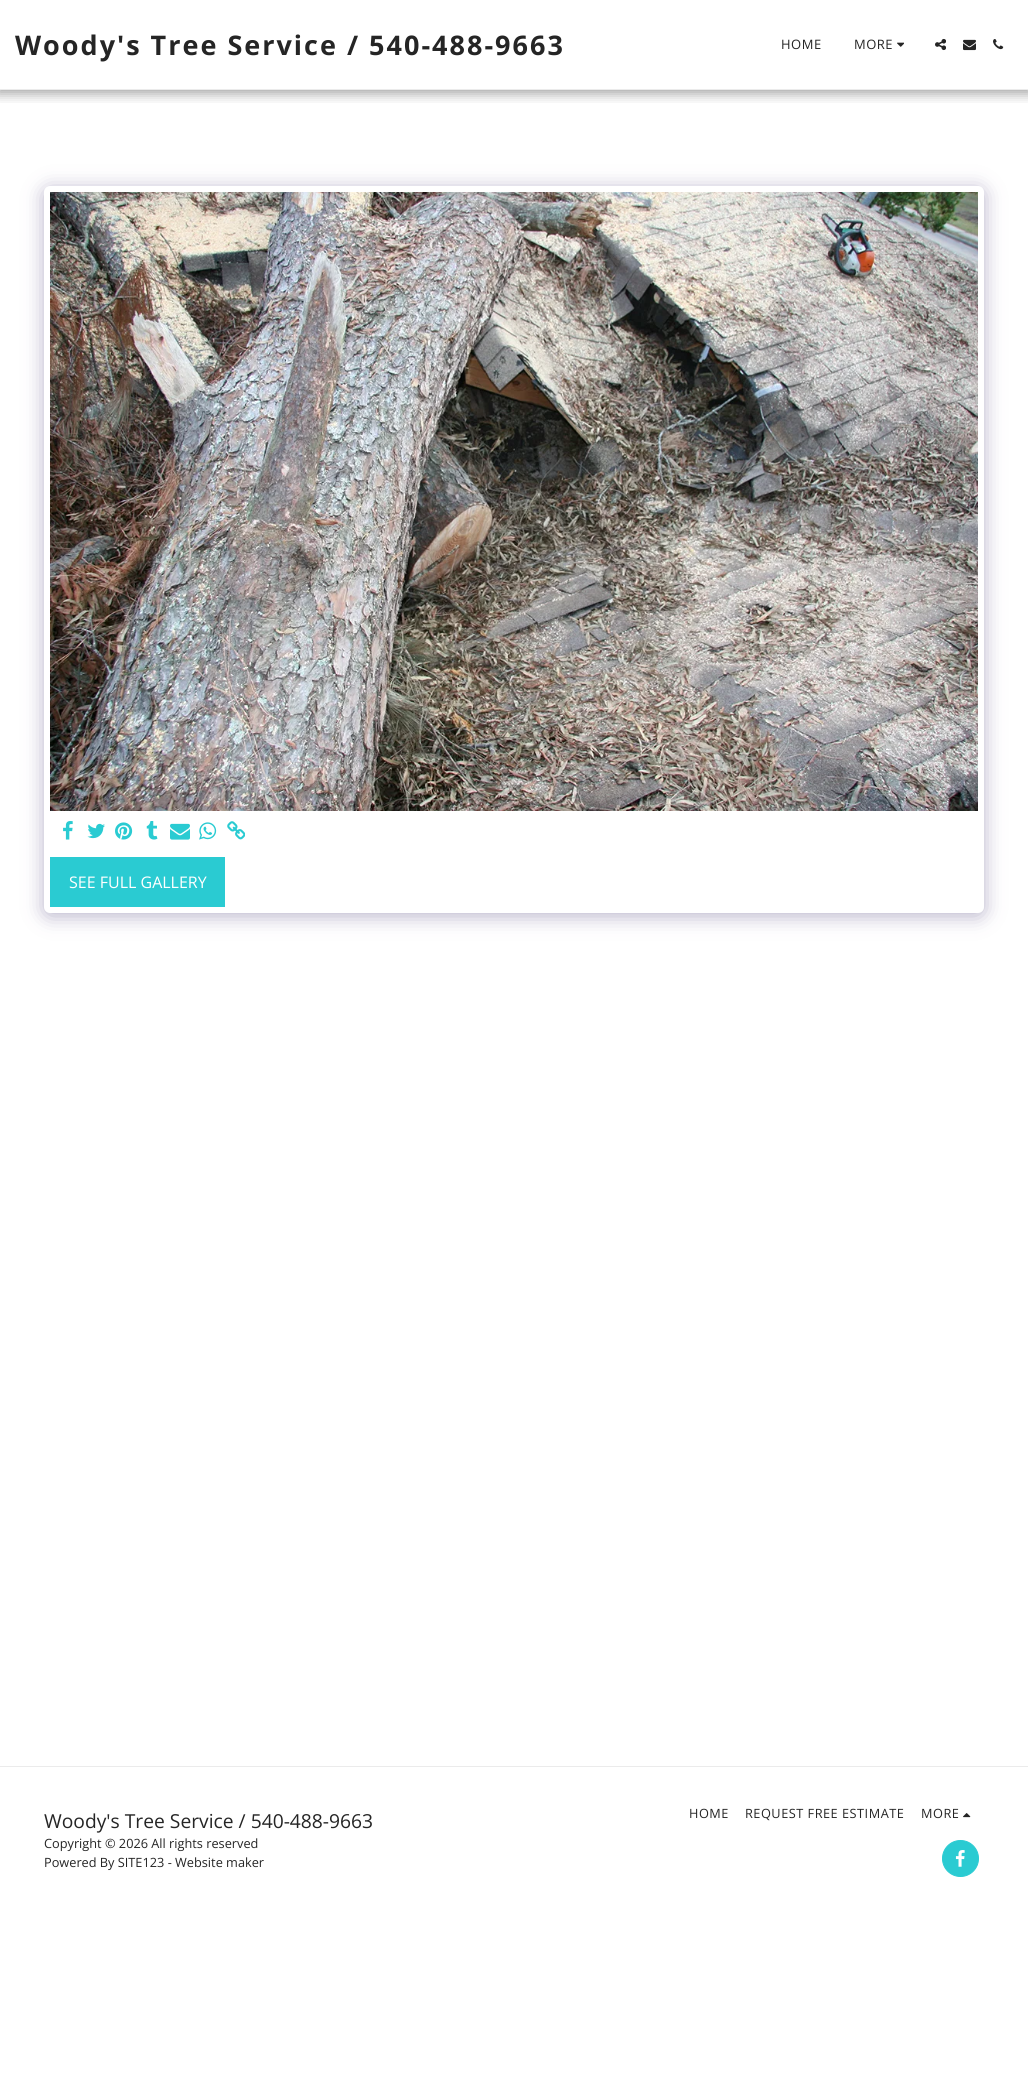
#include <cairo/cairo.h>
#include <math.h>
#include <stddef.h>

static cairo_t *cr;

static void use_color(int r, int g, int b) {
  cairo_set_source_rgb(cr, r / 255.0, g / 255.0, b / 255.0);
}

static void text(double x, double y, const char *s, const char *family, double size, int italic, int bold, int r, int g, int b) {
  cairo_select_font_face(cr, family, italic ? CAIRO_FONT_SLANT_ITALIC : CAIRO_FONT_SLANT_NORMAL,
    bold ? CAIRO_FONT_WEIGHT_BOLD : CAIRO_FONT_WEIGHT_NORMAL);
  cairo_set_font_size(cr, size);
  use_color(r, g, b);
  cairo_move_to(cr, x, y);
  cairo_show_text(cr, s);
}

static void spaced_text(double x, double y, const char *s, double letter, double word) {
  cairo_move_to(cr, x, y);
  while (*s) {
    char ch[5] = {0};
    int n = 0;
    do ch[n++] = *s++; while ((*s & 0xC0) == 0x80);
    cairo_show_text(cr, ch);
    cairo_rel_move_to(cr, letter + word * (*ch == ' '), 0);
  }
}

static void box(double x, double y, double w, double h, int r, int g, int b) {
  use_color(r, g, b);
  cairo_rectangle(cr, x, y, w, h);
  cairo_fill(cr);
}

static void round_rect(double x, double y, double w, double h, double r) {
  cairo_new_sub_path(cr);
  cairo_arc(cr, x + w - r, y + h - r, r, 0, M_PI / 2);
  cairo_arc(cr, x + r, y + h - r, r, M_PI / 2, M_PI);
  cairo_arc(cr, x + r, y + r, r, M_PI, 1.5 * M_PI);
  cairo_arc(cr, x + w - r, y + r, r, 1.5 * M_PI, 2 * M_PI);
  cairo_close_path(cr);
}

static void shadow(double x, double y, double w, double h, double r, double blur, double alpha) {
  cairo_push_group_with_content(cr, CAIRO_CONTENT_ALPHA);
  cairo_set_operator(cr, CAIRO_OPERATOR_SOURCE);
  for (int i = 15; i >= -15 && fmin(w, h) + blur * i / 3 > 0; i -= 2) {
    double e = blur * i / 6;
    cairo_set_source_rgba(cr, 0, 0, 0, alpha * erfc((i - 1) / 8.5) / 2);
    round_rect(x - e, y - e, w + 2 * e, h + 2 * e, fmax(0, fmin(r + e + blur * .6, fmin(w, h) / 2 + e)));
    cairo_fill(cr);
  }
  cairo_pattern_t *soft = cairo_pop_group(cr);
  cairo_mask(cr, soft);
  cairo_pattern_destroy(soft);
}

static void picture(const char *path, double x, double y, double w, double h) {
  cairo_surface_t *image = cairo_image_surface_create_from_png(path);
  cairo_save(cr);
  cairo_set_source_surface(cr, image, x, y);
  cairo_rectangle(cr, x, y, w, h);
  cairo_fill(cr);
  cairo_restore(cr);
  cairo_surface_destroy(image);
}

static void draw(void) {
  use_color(255, 255, 255);
  cairo_paint(cr);
  cairo_save(cr);
  cairo_rectangle(cr, 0, 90, 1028, 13);
  cairo_clip(cr);
  use_color(0, 0, 0);
  shadow(-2, 0, 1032, 94, 0, 6, 0.35);
  cairo_restore(cr);
  box(0, 89, 1028, 1, 235, 235, 235);
  picture("img_01.png", 897, 42, 7, 5);
  picture("img_02.png", 935, 38, 11, 13);
  picture("img_03.png", 963, 39, 13, 12);
  picture("img_04.png", 993, 39, 11, 11);
  use_color(77, 63, 122);
  shadow(44, 189, 940, 727, 6, 10, 0.4);
  use_color(255, 255, 255);
  round_rect(44, 186, 940, 727, 6);
  cairo_fill(cr);
  picture("img_05.png", 50, 192, 928, 619);
  picture("img_06.png", 63, 821, 10, 19);
  picture("img_07.png", 87, 823, 18, 16);
  picture("img_08.png", 115, 822, 18, 18);
  picture("img_09.png", 146, 821, 12, 19);
  picture("img_10.png", 170, 823, 20, 17);
  picture("img_11.png", 199, 822, 18, 18);
  picture("img_12.png", 227, 821, 18, 19);
  box(50, 857, 175, 50, 42, 203, 210);
  box(0, 1766, 1028, 1, 235, 235, 235);
  picture("img_13.png", 963, 1813, 8, 5);
  use_color(42, 203, 210);
  cairo_arc(cr, 960.5, 1858.5, 18, 0, 2 * M_PI);
  cairo_fill_preserve(cr);
  cairo_set_line_width(cr, 1);
  cairo_stroke(cr);
  picture("img_14.png", 955, 1850, 10, 17);
  cairo_select_font_face(cr, "Open Sans", CAIRO_FONT_SLANT_NORMAL, CAIRO_FONT_WEIGHT_BOLD);
  cairo_set_font_size(cr, 27);
  use_color(37, 37, 37);
  spaced_text(15, 55, "Woody's Tree Service / 540-488-9663", 2, 0);
  cairo_select_font_face(cr, "Open Sans", CAIRO_FONT_SLANT_NORMAL, CAIRO_FONT_WEIGHT_NORMAL);
  cairo_set_font_size(cr, 13);
  spaced_text(781, 49, "HOME", 0.5, 0);
  spaced_text(854, 49, "MORE", 0.5, 0);
  text(69, 888, "SEE FULL GALLERY", "Open Sans", 16, 0, 0, 255, 255, 255);
  text(44, 1828, "Woody's Tree Service / 540-488-9663", "Open Sans", 19.25, 0, 0, 37, 37, 37);
  text(44, 1848, "Copyright © 2026 All rights reserved", "Open Sans", 12.75, 0, 0, 37, 37, 37);
  text(44, 1867, "Powered By SITE123 - Website maker", "Open Sans", 12.75, 0, 0, 37, 37, 37);
  spaced_text(689, 1818, "HOME", 0.5, 0);
  spaced_text(745, 1818, "REQUEST FREE ESTIMATE", 0.5, 0);
  spaced_text(921, 1818, "MORE", 0.5, 0);
}

int main(void) {
  cairo_surface_t *surface = cairo_image_surface_create(CAIRO_FORMAT_RGB24, 1028, 2095);
  cr = cairo_create(surface);
  cairo_font_options_t *options = cairo_font_options_create();
  cairo_font_options_set_hint_metrics(options, CAIRO_HINT_METRICS_OFF);
  cairo_font_options_set_hint_style(options, CAIRO_HINT_STYLE_NONE);
  cairo_set_font_options(cr, options);
  cairo_set_miter_limit(cr, 4);
  draw();
  cairo_surface_write_to_png(surface, "out.png");
  cairo_font_options_destroy(options);
  cairo_destroy(cr);
  cairo_surface_destroy(surface);
  return 0;
}
